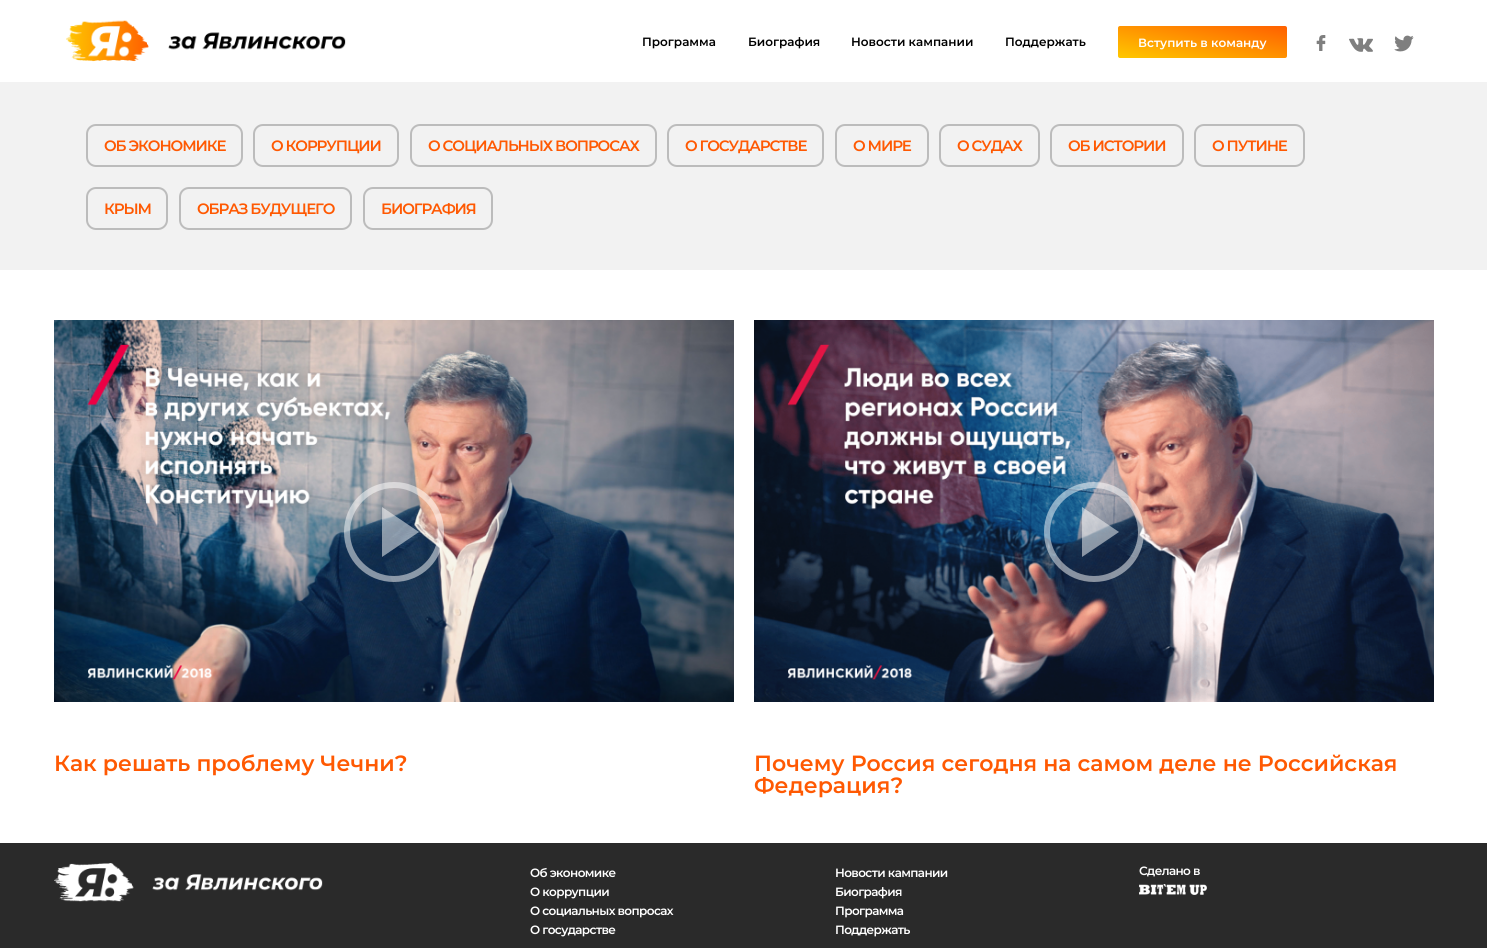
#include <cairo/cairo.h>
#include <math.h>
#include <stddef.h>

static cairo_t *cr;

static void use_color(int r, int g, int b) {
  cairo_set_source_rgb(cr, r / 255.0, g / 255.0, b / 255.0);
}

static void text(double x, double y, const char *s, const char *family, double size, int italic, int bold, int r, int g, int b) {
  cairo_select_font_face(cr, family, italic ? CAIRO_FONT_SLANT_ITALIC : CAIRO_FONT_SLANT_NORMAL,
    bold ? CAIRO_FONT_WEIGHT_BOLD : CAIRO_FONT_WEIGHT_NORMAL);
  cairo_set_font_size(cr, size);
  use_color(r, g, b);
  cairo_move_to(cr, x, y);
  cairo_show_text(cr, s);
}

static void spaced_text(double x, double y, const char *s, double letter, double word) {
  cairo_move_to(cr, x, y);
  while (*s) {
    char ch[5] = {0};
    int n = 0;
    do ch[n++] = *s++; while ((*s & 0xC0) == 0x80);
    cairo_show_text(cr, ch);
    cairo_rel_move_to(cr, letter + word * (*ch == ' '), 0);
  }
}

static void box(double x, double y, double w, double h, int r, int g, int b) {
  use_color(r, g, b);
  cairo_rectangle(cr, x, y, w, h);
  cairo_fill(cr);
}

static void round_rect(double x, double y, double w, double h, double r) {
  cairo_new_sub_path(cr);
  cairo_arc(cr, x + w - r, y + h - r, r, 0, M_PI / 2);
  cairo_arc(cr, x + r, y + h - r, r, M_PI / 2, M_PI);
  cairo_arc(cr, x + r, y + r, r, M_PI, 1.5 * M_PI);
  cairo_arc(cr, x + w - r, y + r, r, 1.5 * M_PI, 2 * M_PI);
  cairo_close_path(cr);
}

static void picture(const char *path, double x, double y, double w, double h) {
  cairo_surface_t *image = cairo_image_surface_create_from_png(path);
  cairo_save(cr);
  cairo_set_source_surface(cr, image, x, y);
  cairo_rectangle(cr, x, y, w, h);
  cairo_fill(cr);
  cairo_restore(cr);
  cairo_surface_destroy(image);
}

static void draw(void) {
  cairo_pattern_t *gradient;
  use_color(242, 242, 242);
  cairo_paint(cr);
  box(0, 0, 1487, 82, 255, 255, 255);
  picture("img_01.png", 66, 20, 280, 42);
  gradient = cairo_pattern_create_linear(1196, 74, 1209, 10);
  cairo_pattern_add_color_stop_rgba(gradient, 0, 1, 0.784, 0, 1);
  cairo_pattern_add_color_stop_rgba(gradient, 1, 1, 0.373, 0, 1);
  cairo_set_source(cr, gradient);
  cairo_pattern_destroy(gradient);
  round_rect(1118, 26, 169, 32, 2);
  cairo_fill(cr);
  picture("img_02.png", 1316, 35, 10, 16);
  picture("img_03.png", 1349, 38, 24, 14);
  picture("img_04.png", 1394, 35, 20, 17);
  round_rect(87, 125, 155, 41, 9);
  use_color(188, 188, 188);
  cairo_stroke(cr);
  round_rect(254, 125, 144, 41, 9);
  cairo_stroke(cr);
  round_rect(411, 125, 245, 41, 9);
  cairo_stroke(cr);
  round_rect(668, 125, 155, 41, 9);
  cairo_stroke(cr);
  round_rect(836, 125, 92, 41, 9);
  cairo_stroke(cr);
  round_rect(940, 125, 99, 41, 9);
  cairo_stroke(cr);
  round_rect(1051, 125, 132, 41, 9);
  cairo_stroke(cr);
  round_rect(1195, 125, 109, 41, 9);
  cairo_stroke(cr);
  round_rect(87, 188, 80, 41, 9);
  cairo_stroke(cr);
  round_rect(180, 188, 171, 41, 9);
  cairo_stroke(cr);
  round_rect(364, 188, 128, 41, 9);
  cairo_stroke(cr);
  box(0, 270, 1487, 573, 255, 255, 255);
  picture("img_05.png", 54, 320, 680, 382);
  cairo_set_source_rgba(cr, 1, 1, 1, 0.5);
  cairo_new_path(cr);
  cairo_move_to(cr, 394, 488);
  cairo_curve_to(cr, 418, 488, 438, 508, 438, 532);
  cairo_curve_to(cr, 438, 556, 418, 576, 394, 576);
  cairo_curve_to(cr, 370, 576, 350, 556, 350, 532);
  cairo_curve_to(cr, 350, 508, 370, 488, 394, 488);
  cairo_close_path(cr);
  cairo_move_to(cr, 394, 482);
  cairo_curve_to(cr, 366, 482, 344, 504, 344, 532);
  cairo_curve_to(cr, 344, 560, 366, 582, 394, 582);
  cairo_curve_to(cr, 422, 582, 444, 560, 444, 532);
  cairo_curve_to(cr, 444, 504, 422, 482, 394, 482);
  cairo_close_path(cr);
  cairo_fill(cr);
  cairo_new_path(cr);
  cairo_move_to(cr, 382, 507);
  cairo_line_to(cr, 382, 557);
  cairo_line_to(cr, 419, 532);
  cairo_close_path(cr);
  cairo_fill(cr);
  picture("img_06.png", 754, 320, 680, 382);
  cairo_new_path(cr);
  cairo_move_to(cr, 1094, 488);
  cairo_curve_to(cr, 1118, 488, 1138, 508, 1138, 532);
  cairo_curve_to(cr, 1138, 556, 1118, 576, 1094, 576);
  cairo_curve_to(cr, 1070, 576, 1050, 556, 1050, 532);
  cairo_curve_to(cr, 1050, 508, 1070, 488, 1094, 488);
  cairo_close_path(cr);
  cairo_move_to(cr, 1094, 482);
  cairo_curve_to(cr, 1066, 482, 1044, 504, 1044, 532);
  cairo_curve_to(cr, 1044, 560, 1066, 582, 1094, 582);
  cairo_curve_to(cr, 1122, 582, 1144, 560, 1144, 532);
  cairo_curve_to(cr, 1144, 504, 1122, 482, 1094, 482);
  cairo_close_path(cr);
  cairo_fill(cr);
  cairo_new_path(cr);
  cairo_move_to(cr, 1082, 507);
  cairo_line_to(cr, 1082, 557);
  cairo_line_to(cr, 1119, 532);
  cairo_close_path(cr);
  cairo_fill(cr);
  box(0, 843, 1487, 105, 42, 42, 42);
  picture("img_07.png", 54, 863, 269, 39);
  picture("img_08.png", 1139, 884, 68, 11);
  text(642, 46, "Программа", "Montserrat SemiBold", 12, 0, 0, 0, 0, 0);
  text(748, 46, "Биография", "Montserrat SemiBold", 12, 0, 0, 0, 0, 0);
  text(851, 46, "Новости кампании", "Montserrat SemiBold", 12, 0, 0, 0, 0, 0);
  text(1005, 46, "Поддержать", "Montserrat SemiBold", 12, 0, 0, 0, 0, 0);
  text(1138, 47, "Вступить в команду", "Montserrat SemiBold", 12, 0, 0, 255, 255, 255);
  cairo_set_font_size(cr, 15);
  use_color(255, 89, 2);
  spaced_text(104, 151, "ОБ ЭКОНОМИКЕ", -1.1, 0);
  spaced_text(271, 151, "О КОРРУПЦИИ", -1.1, 0);
  spaced_text(428, 151, "О СОЦИАЛЬНЫХ ВОПРОСАХ", -1.1, 0);
  spaced_text(685, 151, "О ГОСУДАРСТВЕ", -1.1, 0);
  spaced_text(853, 151, "О МИРЕ", -1.1, 0);
  spaced_text(957, 151, "О СУДАХ", -1.1, 0);
  spaced_text(1068, 151, "ОБ ИСТОРИИ", -1.1, 0);
  spaced_text(1212, 151, "О ПУТИНЕ", -1.1, 0);
  spaced_text(104, 214, "КРЫМ", -1.1, 0);
  spaced_text(197, 214, "ОБРАЗ БУДУЩЕГО", -1.1, 0);
  spaced_text(381, 214, "БИОГРАФИЯ", -1.1, 0);
  text(54, 771, "Как решать проблему Чечни?", "Montserrat SemiBold", 22, 0, 0, 255, 89, 2);
  text(754, 771, "Почему Россия сегодня на самом деле не Российская", "Montserrat SemiBold", 22, 0, 0, 255, 89, 2);
  text(754, 793, "Федерация?", "Montserrat SemiBold", 22, 0, 0, 255, 89, 2);
  cairo_set_font_size(cr, 12);
  use_color(255, 255, 255);
  spaced_text(530, 877, "Об экономике", -0.6, 0);
  spaced_text(530, 896, "О коррупции", -0.6, 0);
  spaced_text(530, 915, "О социальных вопросах", -0.6, 0);
  spaced_text(530, 934, "О государстве", -0.6, 0);
  spaced_text(835, 877, "Новости кампании", -0.6, 0);
  spaced_text(835, 896, "Биография", -0.6, 0);
  spaced_text(835, 915, "Программа", -0.6, 0);
  spaced_text(835, 934, "Поддержать", -0.6, 0);
  spaced_text(1139, 875, "Сделано в", -0.6, 0);
}

int main(void) {
  cairo_surface_t *surface = cairo_image_surface_create(CAIRO_FORMAT_RGB24, 1487, 948);
  cr = cairo_create(surface);
  cairo_font_options_t *options = cairo_font_options_create();
  cairo_font_options_set_hint_metrics(options, CAIRO_HINT_METRICS_OFF);
  cairo_font_options_set_hint_style(options, CAIRO_HINT_STYLE_NONE);
  cairo_set_font_options(cr, options);
  cairo_set_miter_limit(cr, 4);
  draw();
  cairo_surface_write_to_png(surface, "out.png");
  cairo_font_options_destroy(options);
  cairo_destroy(cr);
  cairo_surface_destroy(surface);
  return 0;
}
